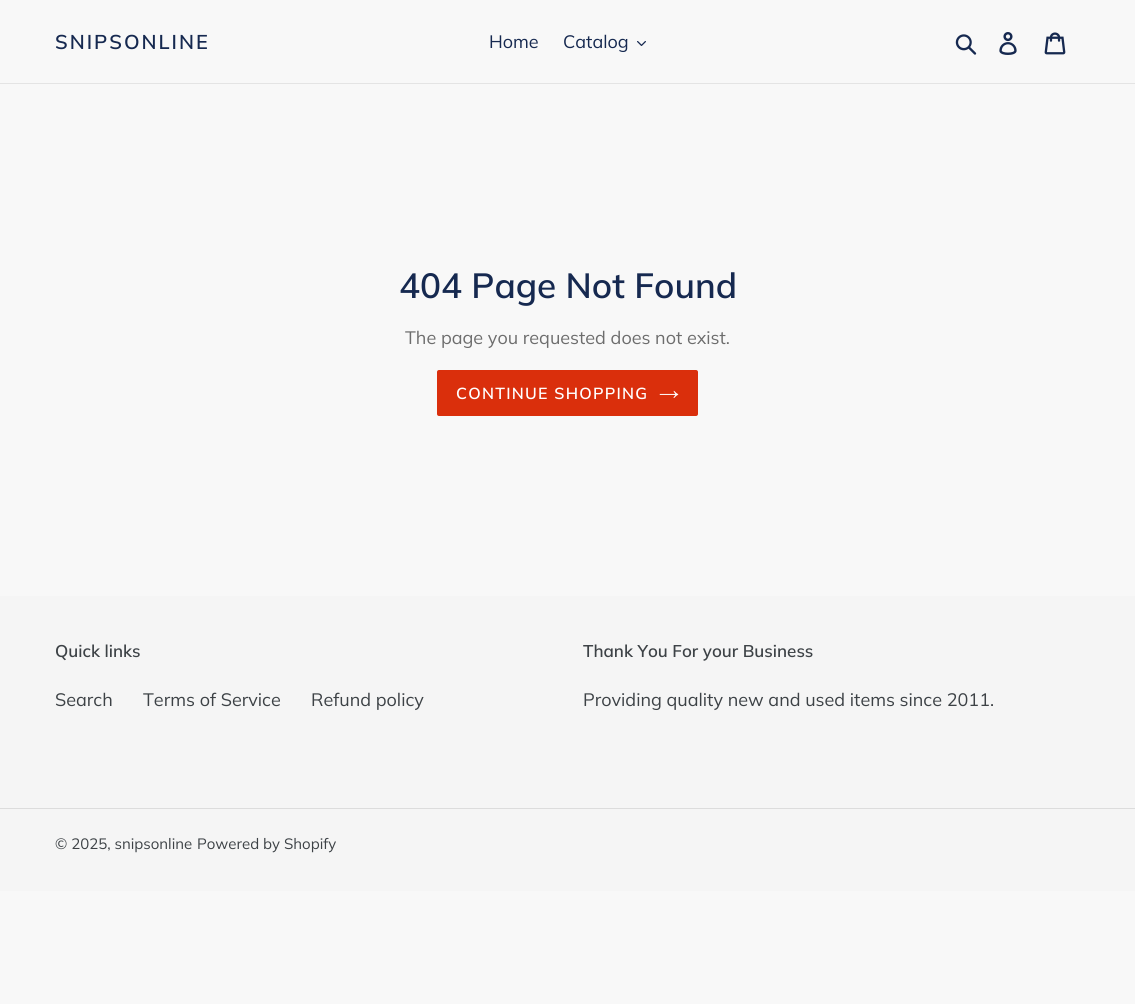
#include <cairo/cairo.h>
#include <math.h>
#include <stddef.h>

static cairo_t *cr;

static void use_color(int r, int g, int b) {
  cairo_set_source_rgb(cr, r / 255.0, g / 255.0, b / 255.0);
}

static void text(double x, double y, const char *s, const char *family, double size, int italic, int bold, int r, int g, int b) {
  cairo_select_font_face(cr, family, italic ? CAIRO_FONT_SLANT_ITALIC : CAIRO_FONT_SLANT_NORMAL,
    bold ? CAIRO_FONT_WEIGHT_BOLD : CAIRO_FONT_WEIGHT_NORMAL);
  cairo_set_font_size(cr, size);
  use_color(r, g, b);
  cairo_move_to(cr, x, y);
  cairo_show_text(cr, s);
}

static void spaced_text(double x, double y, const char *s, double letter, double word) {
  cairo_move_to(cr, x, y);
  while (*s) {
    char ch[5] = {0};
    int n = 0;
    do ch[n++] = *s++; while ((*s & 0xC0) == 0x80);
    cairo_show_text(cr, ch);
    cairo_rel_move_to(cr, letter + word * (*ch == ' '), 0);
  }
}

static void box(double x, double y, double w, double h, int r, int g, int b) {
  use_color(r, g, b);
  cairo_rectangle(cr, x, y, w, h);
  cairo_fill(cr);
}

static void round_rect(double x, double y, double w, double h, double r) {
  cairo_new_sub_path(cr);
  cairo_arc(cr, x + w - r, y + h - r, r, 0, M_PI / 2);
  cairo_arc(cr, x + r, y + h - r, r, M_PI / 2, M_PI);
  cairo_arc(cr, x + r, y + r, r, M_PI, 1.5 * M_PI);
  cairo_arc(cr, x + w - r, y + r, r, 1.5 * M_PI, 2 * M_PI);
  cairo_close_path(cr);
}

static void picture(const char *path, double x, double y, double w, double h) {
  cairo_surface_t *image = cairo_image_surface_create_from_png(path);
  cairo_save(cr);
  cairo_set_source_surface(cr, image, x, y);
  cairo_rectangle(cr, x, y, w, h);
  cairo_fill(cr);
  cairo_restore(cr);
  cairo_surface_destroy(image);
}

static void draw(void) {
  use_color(248, 248, 248);
  cairo_paint(cr);
  box(0, 83, 1135, 1, 228, 228, 228);
  picture("img_01.png", 637, 41, 9, 5);
  picture("img_02.png", 955, 34, 22, 21);
  picture("img_03.png", 999, 32, 18, 23);
  picture("img_04.png", 1044, 32, 22, 23);
  use_color(218, 47, 12);
  round_rect(437, 370, 261, 46, 2);
  cairo_fill(cr);
  picture("img_05.png", 659, 390, 20, 8);
  box(0, 596, 1135, 295, 245, 245, 245);
  box(0, 808, 1135, 1, 220, 220, 220);
  cairo_select_font_face(cr, "Muli SemiBold", CAIRO_FONT_SLANT_NORMAL, CAIRO_FONT_WEIGHT_NORMAL);
  cairo_set_font_size(cr, 20);
  use_color(22, 41, 80);
  spaced_text(55, 49, "SNIPSONLINE", 2, 0);
  text(489, 48, "Home", "Muli", 18, 0, 0, 22, 41, 80);
  text(563, 48, "Catalog", "Muli", 18, 0, 0, 22, 41, 80);
  text(399, 298, "404 Page Not Found", "Muli SemiBold", 35, 0, 0, 22, 41, 80);
  text(405, 344, "The page you requested does not exist.", "Muli", 18, 0, 0, 109, 109, 109);
  cairo_select_font_face(cr, "Muli SemiBold", CAIRO_FONT_SLANT_NORMAL, CAIRO_FONT_WEIGHT_NORMAL);
  cairo_set_font_size(cr, 16);
  use_color(255, 255, 255);
  spaced_text(456, 399, "CONTINUE SHOPPING", 1.25, 0);
  text(55, 657, "Quick links", "Muli SemiBold", 17, 0, 0, 61, 66, 70);
  text(55, 706, "Search", "Muli", 18, 0, 0, 61, 66, 70);
  text(143, 706, "Terms of Service", "Muli", 18, 0, 0, 61, 66, 70);
  text(311, 706, "Refund policy", "Muli", 18, 0, 0, 61, 66, 70);
  text(583, 657, "Thank You For your Business", "Muli SemiBold", 17, 0, 0, 61, 66, 70);
  text(583, 706, "Providing quality new and used items since 2011.", "Muli", 18, 0, 0, 61, 66, 70);
  text(55, 849, "© 2025, snipsonline", "Muli", 15, 0, 0, 61, 66, 70);
  text(197, 849, "Powered by Shopify", "Muli", 15, 0, 0, 61, 66, 70);
}

int main(void) {
  cairo_surface_t *surface = cairo_image_surface_create(CAIRO_FORMAT_RGB24, 1135, 1004);
  cr = cairo_create(surface);
  cairo_font_options_t *options = cairo_font_options_create();
  cairo_font_options_set_hint_metrics(options, CAIRO_HINT_METRICS_OFF);
  cairo_font_options_set_hint_style(options, CAIRO_HINT_STYLE_NONE);
  cairo_set_font_options(cr, options);
  cairo_set_miter_limit(cr, 4);
  draw();
  cairo_surface_write_to_png(surface, "out.png");
  cairo_font_options_destroy(options);
  cairo_destroy(cr);
  cairo_surface_destroy(surface);
  return 0;
}
